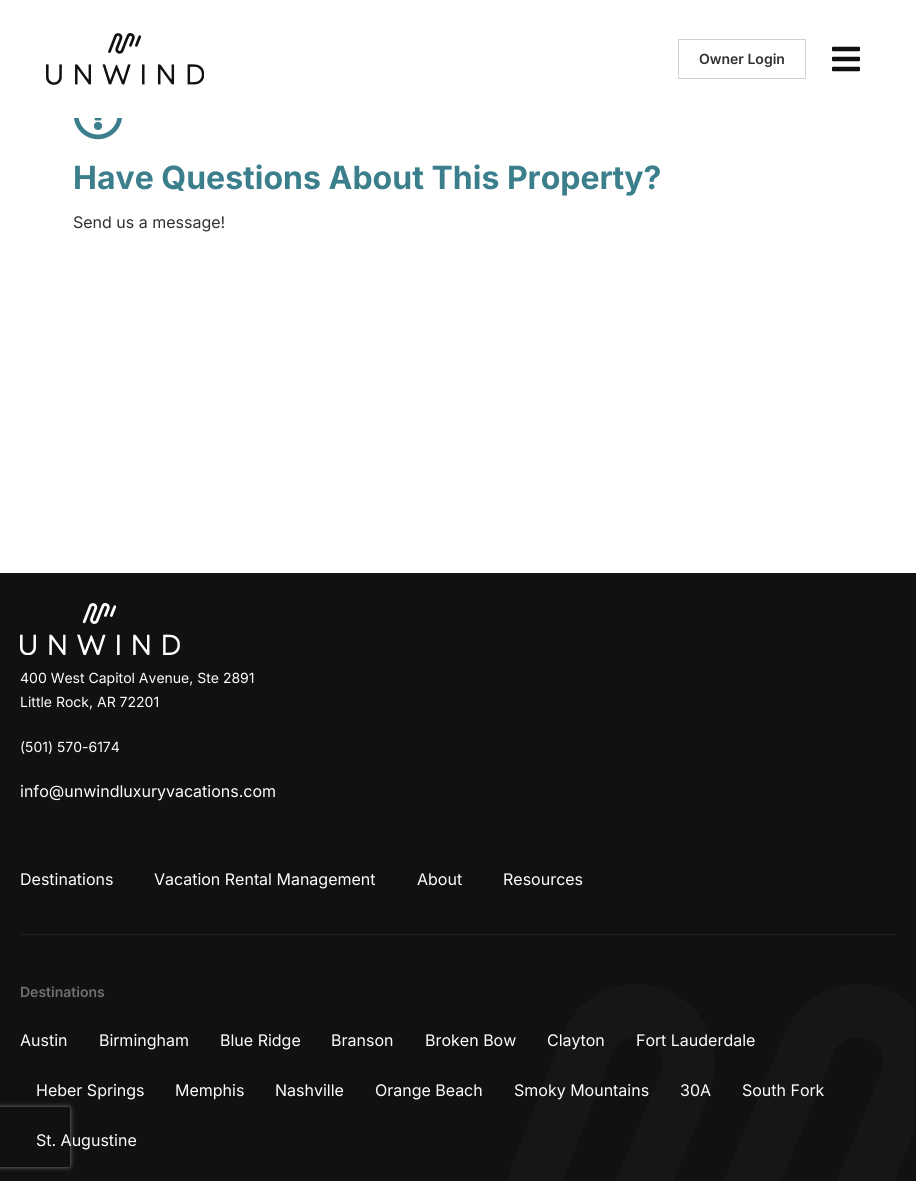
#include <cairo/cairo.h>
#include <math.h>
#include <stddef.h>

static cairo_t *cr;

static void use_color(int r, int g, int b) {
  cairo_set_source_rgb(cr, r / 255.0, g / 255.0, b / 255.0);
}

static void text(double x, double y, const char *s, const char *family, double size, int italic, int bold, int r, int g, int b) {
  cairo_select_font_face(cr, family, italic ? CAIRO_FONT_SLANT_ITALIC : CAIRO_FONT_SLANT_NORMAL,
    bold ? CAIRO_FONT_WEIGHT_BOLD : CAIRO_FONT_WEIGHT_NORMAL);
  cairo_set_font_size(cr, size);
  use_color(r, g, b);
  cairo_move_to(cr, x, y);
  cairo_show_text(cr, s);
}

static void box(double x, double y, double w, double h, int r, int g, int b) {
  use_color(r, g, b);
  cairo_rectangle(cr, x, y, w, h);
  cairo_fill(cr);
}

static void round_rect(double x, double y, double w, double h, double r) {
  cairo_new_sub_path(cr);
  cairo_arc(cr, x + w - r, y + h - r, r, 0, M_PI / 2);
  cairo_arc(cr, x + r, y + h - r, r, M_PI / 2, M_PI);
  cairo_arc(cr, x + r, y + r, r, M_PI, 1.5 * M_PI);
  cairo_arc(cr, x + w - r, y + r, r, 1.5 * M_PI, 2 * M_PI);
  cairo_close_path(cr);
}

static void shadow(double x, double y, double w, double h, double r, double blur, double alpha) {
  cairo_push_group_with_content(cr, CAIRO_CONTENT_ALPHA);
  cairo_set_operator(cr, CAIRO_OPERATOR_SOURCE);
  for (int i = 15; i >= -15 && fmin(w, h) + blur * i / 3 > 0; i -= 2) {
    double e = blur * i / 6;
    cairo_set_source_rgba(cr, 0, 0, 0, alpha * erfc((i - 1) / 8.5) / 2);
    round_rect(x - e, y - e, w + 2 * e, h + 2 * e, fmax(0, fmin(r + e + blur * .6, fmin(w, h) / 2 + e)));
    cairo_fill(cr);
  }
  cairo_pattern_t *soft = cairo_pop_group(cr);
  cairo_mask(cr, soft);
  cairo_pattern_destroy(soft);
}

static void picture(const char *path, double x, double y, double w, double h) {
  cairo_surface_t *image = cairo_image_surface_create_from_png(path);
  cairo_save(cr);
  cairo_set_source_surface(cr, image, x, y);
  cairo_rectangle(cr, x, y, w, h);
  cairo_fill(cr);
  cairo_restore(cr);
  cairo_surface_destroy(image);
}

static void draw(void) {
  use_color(255, 255, 255);
  cairo_paint(cr);
  picture("img_01.png", 46, 33, 158, 52);
  cairo_rectangle(cr, 678.5, 39.5, 127, 39);
  use_color(205, 210, 217);
  cairo_set_line_width(cr, 1);
  cairo_stroke(cr);
  picture("img_02.png", 832, 46, 28, 26);
  picture("img_03.png", 74, 118, 48, 22);
  box(0, 573, 916, 608, 17, 17, 17);
  cairo_save(cr);
  cairo_set_fill_rule(cr, CAIRO_FILL_RULE_EVEN_ODD);
  cairo_new_path(cr);
  cairo_move_to(cr, 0, 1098);
  cairo_line_to(cr, 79, 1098);
  cairo_line_to(cr, 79, 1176);
  cairo_line_to(cr, 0, 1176);
  cairo_close_path(cr);
  cairo_move_to(cr, -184, 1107);
  cairo_line_to(cr, 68, 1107);
  cairo_curve_to(cr, 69, 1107, 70, 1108, 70, 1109);
  cairo_line_to(cr, 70, 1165);
  cairo_curve_to(cr, 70, 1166, 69, 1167, 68, 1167);
  cairo_line_to(cr, -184, 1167);
  cairo_curve_to(cr, -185, 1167, -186, 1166, -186, 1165);
  cairo_line_to(cr, -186, 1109);
  cairo_curve_to(cr, -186, 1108, -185, 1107, -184, 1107);
  cairo_close_path(cr);
  cairo_clip(cr);
  use_color(128, 128, 128);
  shadow(-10, 1107, 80, 60, 2, 2.5, 1);
  cairo_restore(cr);
  picture("img_04.png", 507, 984, 408, 197);
  picture("img_05.png", 20, 603, 160, 52);
  cairo_new_path(cr);
  cairo_move_to(cr, 20, 934.5);
  cairo_line_to(cr, 896, 934.5);
  use_color(47, 48, 50);
  cairo_set_dash(cr, (double[]){1, 1}, 2, 0);
  cairo_stroke(cr);
  text(699, 64, "Owner Login", "Inter SemiBold", 14, 0, 0, 47, 48, 50);
  text(73, 189, "Have Questions About This Property?", "Inter", 32, 0, 1, 59, 126, 140);
  text(73, 228, "Send us a message!", "Inter", 16, 0, 0, 47, 48, 50);
  text(20, 683, "400 West Capitol Avenue, Ste 2891", "Inter", 14, 0, 0, 255, 255, 255);
  text(20, 707, "Little Rock, AR 72201", "Inter", 14, 0, 0, 255, 255, 255);
  text(20, 752, "(501) 570-6174", "Inter", 14, 0, 0, 255, 255, 255);
  text(20, 797, "info@unwindluxuryvacations.com", "Inter", 16, 0, 0, 255, 255, 255);
  text(20, 885, "Destinations", "Inter", 16, 0, 0, 255, 255, 255);
  text(154, 885, "Vacation Rental Management", "Inter", 16, 0, 0, 255, 255, 255);
  text(417, 885, "About", "Inter", 16, 0, 0, 255, 255, 255);
  text(503, 885, "Resources", "Inter", 16, 0, 0, 255, 255, 255);
  text(20, 997, "Destinations", "Inter SemiBold", 14, 0, 0, 109, 112, 116);
  text(20, 1046, "Austin", "Inter", 16, 0, 0, 255, 255, 255);
  text(99, 1046, "Birmingham", "Inter", 16, 0, 0, 255, 255, 255);
  text(220, 1046, "Blue Ridge", "Inter", 16, 0, 0, 255, 255, 255);
  text(331, 1046, "Branson", "Inter", 16, 0, 0, 255, 255, 255);
  text(425, 1046, "Broken Bow", "Inter", 16, 0, 0, 255, 255, 255);
  text(547, 1046, "Clayton", "Inter", 16, 0, 0, 255, 255, 255);
  text(636, 1046, "Fort Lauderdale", "Inter", 16, 0, 0, 255, 255, 255);
  text(36, 1096, "Heber Springs", "Inter", 16, 0, 0, 255, 255, 255);
  text(175, 1096, "Memphis", "Inter", 16, 0, 0, 255, 255, 255);
  text(275, 1096, "Nashville", "Inter", 16, 0, 0, 255, 255, 255);
  text(375, 1096, "Orange Beach", "Inter", 16, 0, 0, 255, 255, 255);
  text(514, 1096, "Smoky Mountains", "Inter", 16, 0, 0, 255, 255, 255);
  text(680, 1096, "30A", "Inter", 16, 0, 0, 255, 255, 255);
  text(742, 1096, "South Fork", "Inter", 16, 0, 0, 255, 255, 255);
  text(36, 1146, "St. Augustine", "Inter", 16, 0, 0, 255, 255, 255);
}

int main(void) {
  cairo_surface_t *surface = cairo_image_surface_create(CAIRO_FORMAT_RGB24, 916, 1181);
  cr = cairo_create(surface);
  cairo_font_options_t *options = cairo_font_options_create();
  cairo_font_options_set_hint_metrics(options, CAIRO_HINT_METRICS_OFF);
  cairo_font_options_set_hint_style(options, CAIRO_HINT_STYLE_NONE);
  cairo_set_font_options(cr, options);
  cairo_set_miter_limit(cr, 4);
  draw();
  cairo_surface_write_to_png(surface, "out.png");
  cairo_font_options_destroy(options);
  cairo_destroy(cr);
  cairo_surface_destroy(surface);
  return 0;
}
